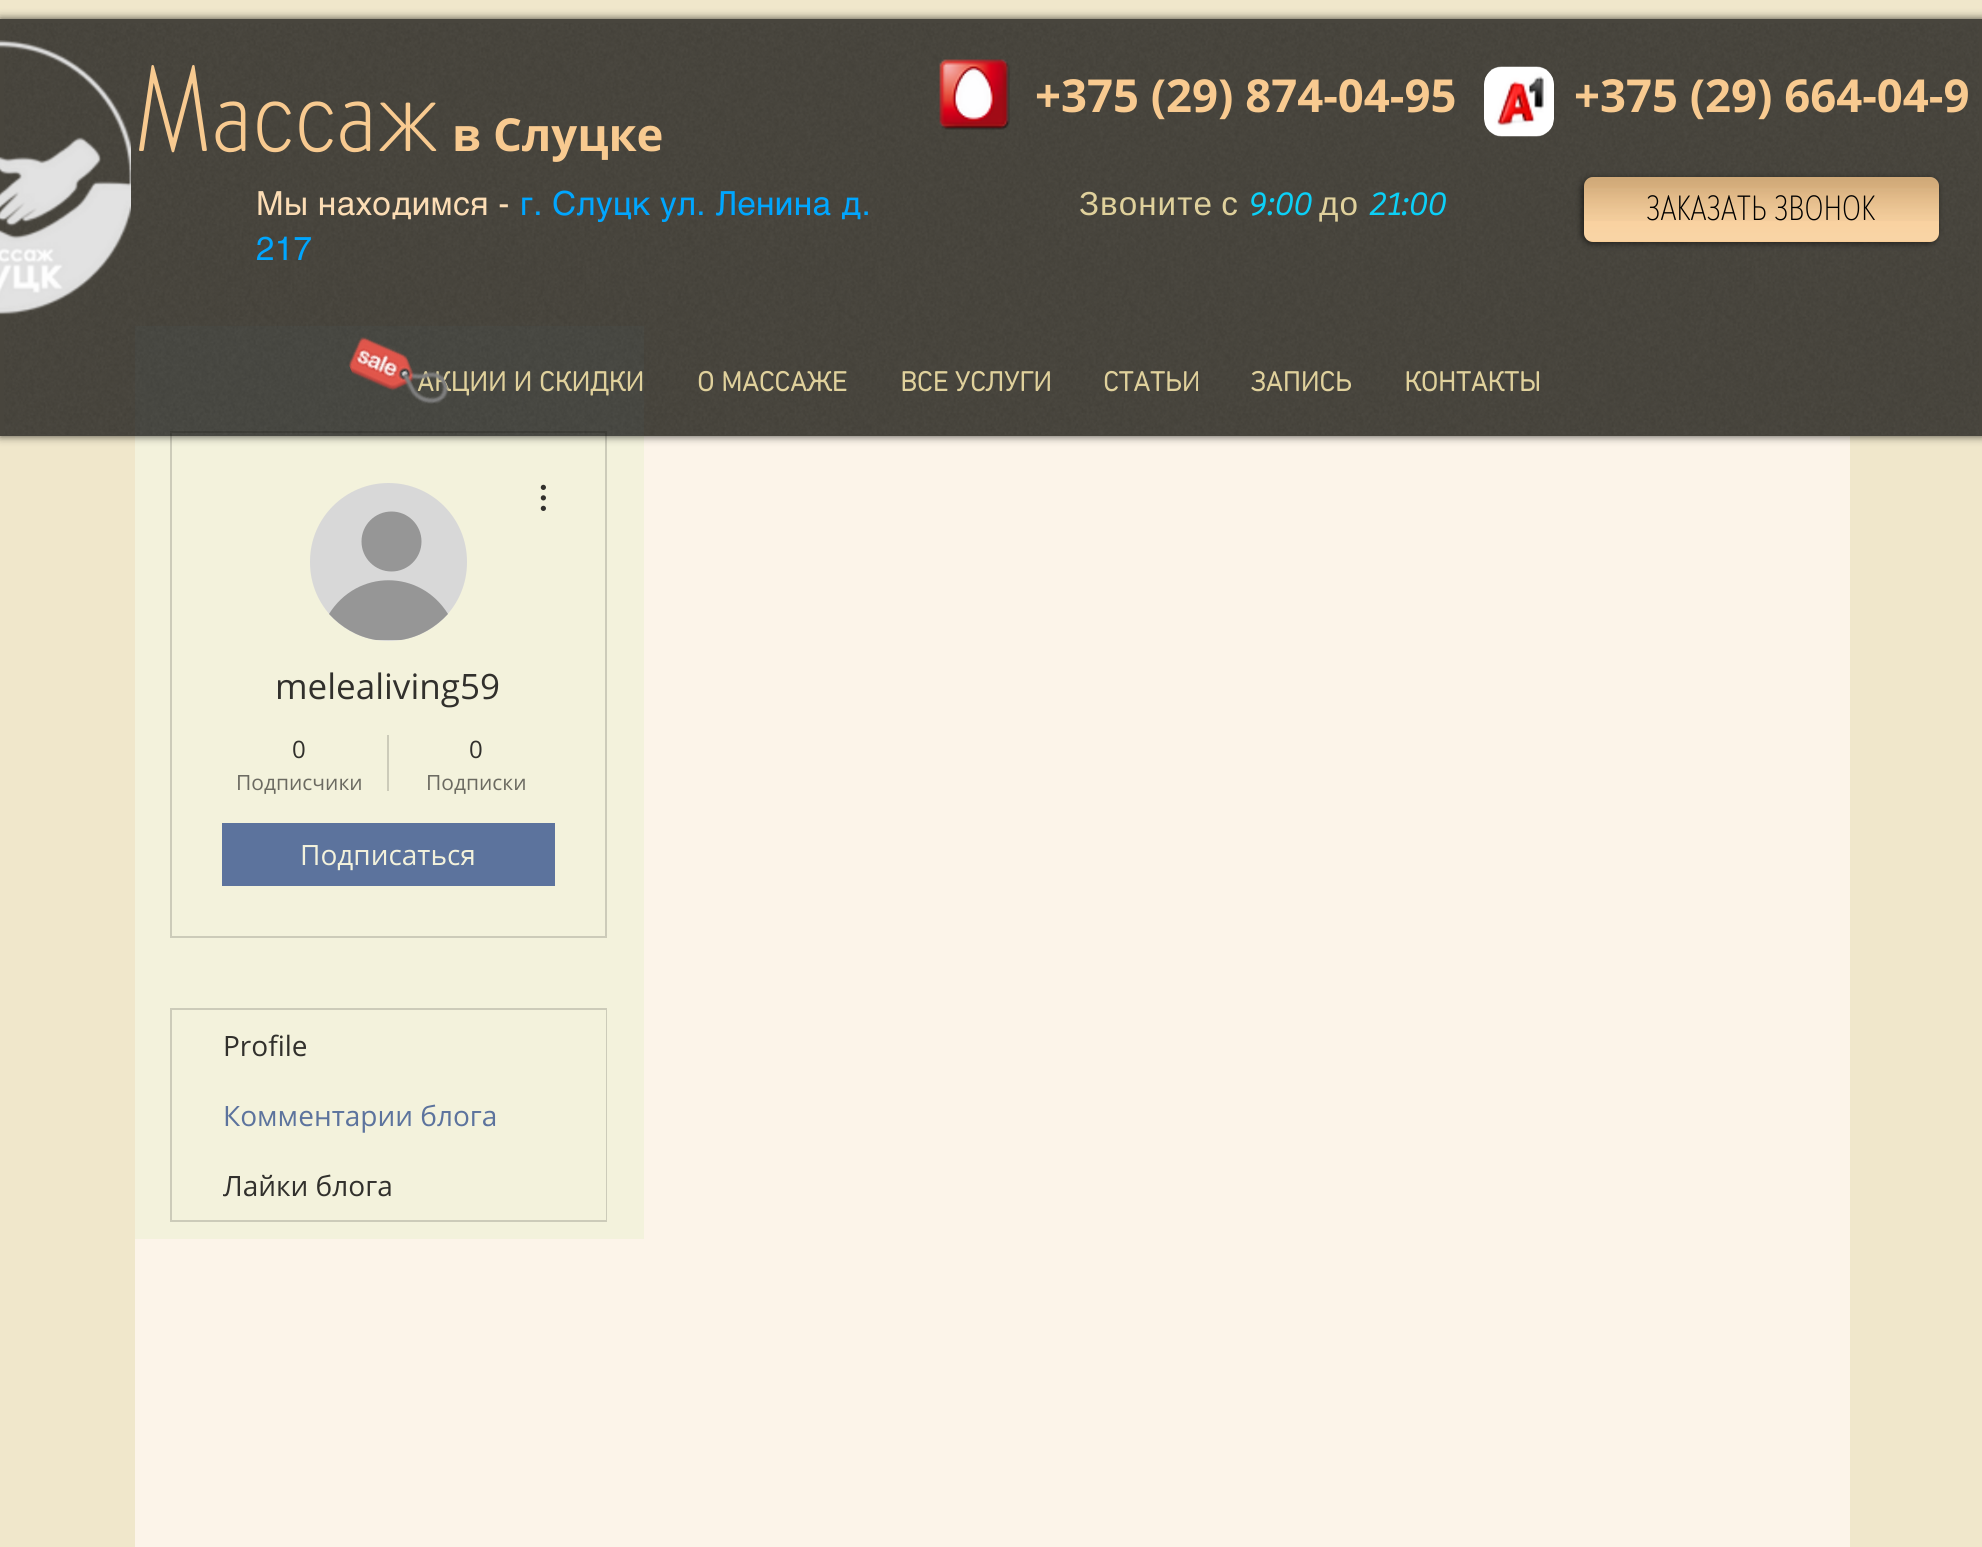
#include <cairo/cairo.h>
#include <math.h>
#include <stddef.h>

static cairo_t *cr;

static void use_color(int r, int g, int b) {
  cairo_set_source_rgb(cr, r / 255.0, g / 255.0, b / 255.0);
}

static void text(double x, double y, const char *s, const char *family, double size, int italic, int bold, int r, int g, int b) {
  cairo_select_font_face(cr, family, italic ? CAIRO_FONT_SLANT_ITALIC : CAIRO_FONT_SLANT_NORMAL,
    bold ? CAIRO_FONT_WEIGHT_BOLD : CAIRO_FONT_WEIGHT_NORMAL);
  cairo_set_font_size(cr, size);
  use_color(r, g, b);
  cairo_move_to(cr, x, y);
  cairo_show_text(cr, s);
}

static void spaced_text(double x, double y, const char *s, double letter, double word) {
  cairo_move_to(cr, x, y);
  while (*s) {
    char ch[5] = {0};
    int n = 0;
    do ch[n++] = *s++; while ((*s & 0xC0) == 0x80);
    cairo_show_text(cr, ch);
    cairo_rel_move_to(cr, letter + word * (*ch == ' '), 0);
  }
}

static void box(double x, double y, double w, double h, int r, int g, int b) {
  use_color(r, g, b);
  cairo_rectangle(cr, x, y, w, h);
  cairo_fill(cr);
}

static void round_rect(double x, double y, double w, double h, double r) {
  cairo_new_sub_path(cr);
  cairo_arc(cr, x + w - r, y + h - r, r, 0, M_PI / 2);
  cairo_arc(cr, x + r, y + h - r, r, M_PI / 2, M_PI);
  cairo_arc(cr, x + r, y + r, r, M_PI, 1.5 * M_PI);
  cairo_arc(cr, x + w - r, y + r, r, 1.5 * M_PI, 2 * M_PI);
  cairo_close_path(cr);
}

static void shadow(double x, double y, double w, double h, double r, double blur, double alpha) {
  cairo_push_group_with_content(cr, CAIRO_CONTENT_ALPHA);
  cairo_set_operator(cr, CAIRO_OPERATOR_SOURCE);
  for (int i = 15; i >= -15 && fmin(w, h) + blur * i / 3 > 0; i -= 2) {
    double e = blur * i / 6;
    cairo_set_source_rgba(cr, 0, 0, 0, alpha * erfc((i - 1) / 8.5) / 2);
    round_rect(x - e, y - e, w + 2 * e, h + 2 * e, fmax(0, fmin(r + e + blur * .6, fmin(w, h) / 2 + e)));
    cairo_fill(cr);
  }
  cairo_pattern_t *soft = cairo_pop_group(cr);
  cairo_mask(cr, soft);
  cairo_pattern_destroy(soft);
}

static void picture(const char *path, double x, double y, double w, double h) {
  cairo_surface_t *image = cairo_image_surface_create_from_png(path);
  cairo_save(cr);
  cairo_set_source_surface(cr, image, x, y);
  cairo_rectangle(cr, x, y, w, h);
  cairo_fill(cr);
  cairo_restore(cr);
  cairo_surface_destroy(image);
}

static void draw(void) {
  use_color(240, 231, 203);
  cairo_paint(cr);
  box(135, 436, 1715, 1111, 252, 244, 233);
  box(135, 326, 509, 913, 243, 242, 220);
  cairo_rectangle(cr, 171, 432, 435, 505);
  use_color(204, 203, 185);
  cairo_stroke(cr);
  cairo_save(cr);
  cairo_set_fill_rule(cr, CAIRO_FILL_RULE_EVEN_ODD);
  cairo_new_path(cr);
  cairo_move_to(cr, 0, 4);
  cairo_line_to(cr, 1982, 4);
  cairo_line_to(cr, 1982, 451);
  cairo_line_to(cr, 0, 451);
  cairo_close_path(cr);
  cairo_move_to(cr, 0, 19);
  cairo_line_to(cr, 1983, 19);
  cairo_line_to(cr, 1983, 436);
  cairo_line_to(cr, 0, 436);
  cairo_close_path(cr);
  cairo_clip(cr);
  use_color(0, 0, 0);
  shadow(0, 19, 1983, 417, 0, 4.5, 0.7);
  cairo_restore(cr);
  cairo_set_source_rgba(cr, 0, 0, 0, 0.7);
  cairo_rectangle(cr, 0, 19, 1982, 417);
  cairo_fill(cr);
  picture("img_01.png", 4, 23, 1975, 412);
  picture("img_02.png", 0, 40, 131, 275);
  picture("img_03.png", 939, 59, 71, 71);
  picture("img_04.png", 1484, 66, 70, 71);
  use_color(0, 0, 0);
  shadow(1582, 179, 355, 64, 9, 3.5, 0.6);
  use_color(248, 202, 144);
  round_rect(1584, 177, 355, 65, 9);
  cairo_fill(cr);
  picture("img_05.png", 1584, 177, 355, 44);
  picture("img_06.png", 1584, 188, 355, 54);
  use_color(216, 216, 216);
  round_rect(310, 483, 157, 158, 78.5);
  cairo_fill(cr);
  use_color(150, 150, 150);
  cairo_arc(cr, 391.5, 541.5, 30, 0, 2 * M_PI);
  cairo_fill(cr);
  cairo_new_path(cr);
  cairo_move_to(cr, 376, 640);
  cairo_curve_to(cr, 357, 637, 341, 627, 329, 614);
  cairo_curve_to(cr, 357, 569, 420, 569, 448, 614);
  cairo_curve_to(cr, 436, 627, 420, 637, 401, 640);
  cairo_close_path(cr);
  cairo_fill(cr);
  picture("img_08.png", 540, 484, 6, 27);
  box(387, 735, 2, 56, 204, 203, 185);
  box(222, 823, 333, 63, 92, 115, 157);
  cairo_rectangle(cr, 171, 1009, 435, 212);
  use_color(204, 203, 185);
  cairo_stroke(cr);
  box(605, 1010, 1, 210, 243, 242, 220);
  text(134, 151, "Массаж", "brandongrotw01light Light", 121, 0, 0, 248, 202, 144);
  text(1035, 112, "+375 (29) 874-04-95", "Open Sans", 45.5, 0, 1, 248, 202, 144);
  text(1574, 112, "+375 (29) 664-04-9", "Open Sans", 45.5, 0, 1, 248, 202, 144);
  text(452, 151, "в Слуцке", "Open Sans", 45.5, 0, 1, 248, 202, 144);
  cairo_select_font_face(cr, "helvetica", CAIRO_FONT_SLANT_NORMAL, CAIRO_FONT_WEIGHT_NORMAL);
  cairo_set_font_size(cr, 33.25);
  use_color(252, 221, 181);
  spaced_text(256, 215, "Мы находимся -", 0.3, 0);
  use_color(0, 166, 255);
  spaced_text(520, 215, "г. Слуцк ул. Ленина д.", 0.3, 0);
  spaced_text(256, 260, "217", 0.3, 0);
  cairo_select_font_face(cr, "Liberation Sans", CAIRO_FONT_SLANT_NORMAL, CAIRO_FONT_WEIGHT_NORMAL);
  use_color(224, 209, 156);
  spaced_text(1079, 215, "Звоните с", 1, -2);
  cairo_select_font_face(cr, "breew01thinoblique", CAIRO_FONT_SLANT_NORMAL, CAIRO_FONT_WEIGHT_BOLD);
  use_color(12, 208, 247);
  spaced_text(1247, 215, "9:00", 1, 0);
  cairo_select_font_face(cr, "Liberation Sans", CAIRO_FONT_SLANT_NORMAL, CAIRO_FONT_WEIGHT_NORMAL);
  use_color(224, 209, 156);
  spaced_text(1319, 215, "до", 1, 0);
  cairo_select_font_face(cr, "breew01thinoblique", CAIRO_FONT_SLANT_NORMAL, CAIRO_FONT_WEIGHT_BOLD);
  use_color(12, 208, 247);
  spaced_text(1368, 215, "21:00", 1, 0);
  text(1646, 220, "ЗАКАЗАТЬ ЗВОНОК", "brandongrotw01light Light", 35, 0, 0, 0, 0, 0);
  text(417, 391, "АКЦИИ И СКИДКИ", "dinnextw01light", 28, 0, 1, 224, 209, 156);
  picture("img_07.png", 348, 337, 101, 67);
  text(697, 391, "О МАССАЖЕ", "dinnextw01light", 28, 0, 1, 224, 209, 156);
  text(900, 391, "ВСЕ УСЛУГИ", "dinnextw01light", 28, 0, 1, 224, 209, 156);
  text(1103, 391, "СТАТЬИ", "dinnextw01light", 28, 0, 1, 224, 209, 156);
  text(1250, 391, "ЗАПИСЬ", "dinnextw01light", 28, 0, 1, 224, 209, 156);
  text(1404, 391, "КОНТАКТЫ", "dinnextw01light", 28, 0, 1, 224, 209, 156);
  text(275, 699, "melealiving59", "Open Sans", 35, 0, 0, 49, 48, 44);
  text(292, 758, "0", "Open Sans", 24, 0, 0, 49, 48, 44);
  text(236, 790, "Подписчики", "Open Sans", 21, 0, 0, 107, 106, 97);
  text(469, 758, "0", "Open Sans", 24, 0, 0, 49, 48, 44);
  text(426, 790, "Подписки", "Open Sans", 21, 0, 0, 107, 106, 97);
  text(300, 865, "Подписаться", "Open Sans", 28, 0, 0, 243, 242, 220);
  text(223, 1056, "Profile", "Open Sans", 28, 0, 0, 49, 48, 44);
  text(223, 1126, "Комментарии блога", "Open Sans", 28, 0, 0, 92, 115, 157);
  text(223, 1196, "Лайки блога", "Open Sans", 28, 0, 0, 49, 48, 44);
}

int main(void) {
  cairo_surface_t *surface = cairo_image_surface_create(CAIRO_FORMAT_RGB24, 1982, 1547);
  cr = cairo_create(surface);
  cairo_font_options_t *options = cairo_font_options_create();
  cairo_font_options_set_hint_metrics(options, CAIRO_HINT_METRICS_OFF);
  cairo_font_options_set_hint_style(options, CAIRO_HINT_STYLE_NONE);
  cairo_set_font_options(cr, options);
  cairo_set_miter_limit(cr, 4);
  draw();
  cairo_surface_write_to_png(surface, "out.png");
  cairo_font_options_destroy(options);
  cairo_destroy(cr);
  cairo_surface_destroy(surface);
  return 0;
}
